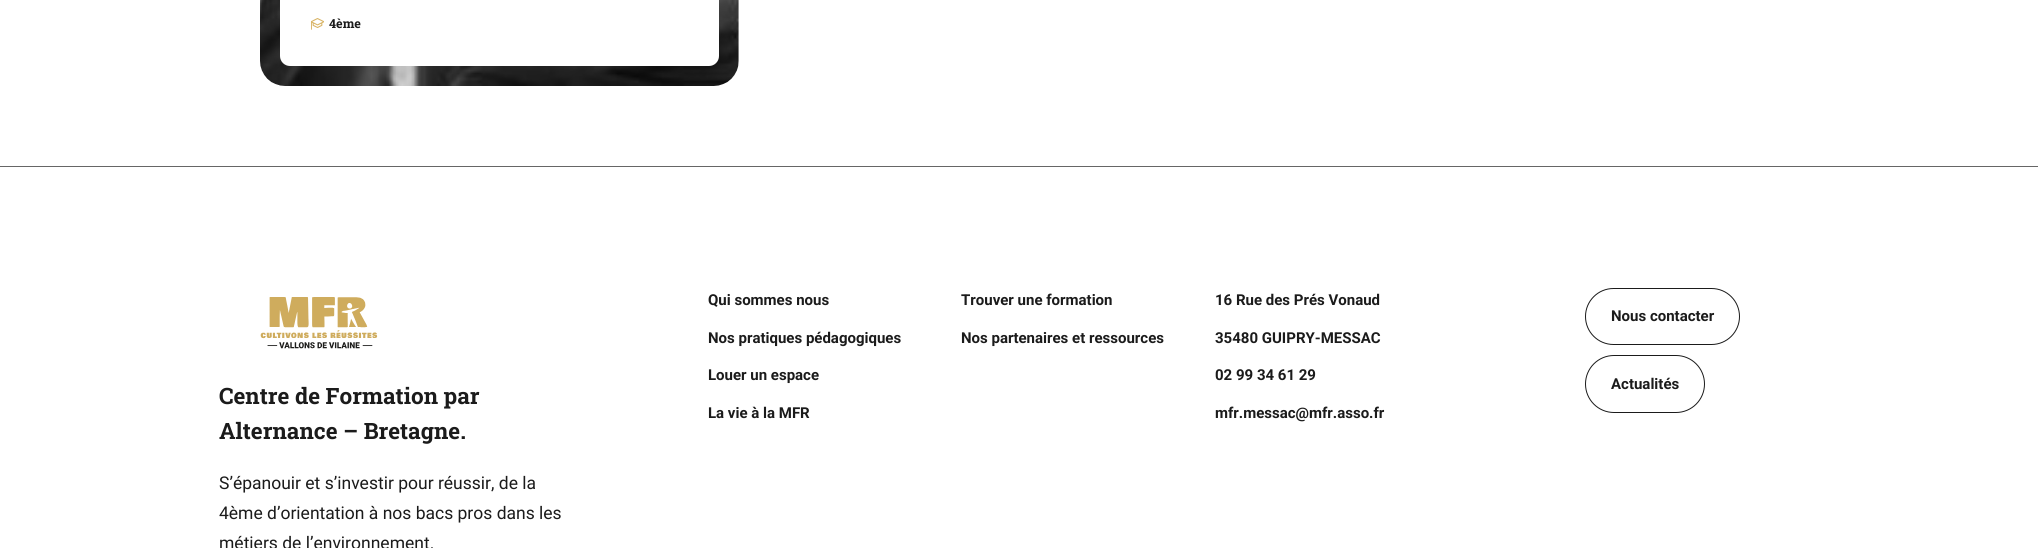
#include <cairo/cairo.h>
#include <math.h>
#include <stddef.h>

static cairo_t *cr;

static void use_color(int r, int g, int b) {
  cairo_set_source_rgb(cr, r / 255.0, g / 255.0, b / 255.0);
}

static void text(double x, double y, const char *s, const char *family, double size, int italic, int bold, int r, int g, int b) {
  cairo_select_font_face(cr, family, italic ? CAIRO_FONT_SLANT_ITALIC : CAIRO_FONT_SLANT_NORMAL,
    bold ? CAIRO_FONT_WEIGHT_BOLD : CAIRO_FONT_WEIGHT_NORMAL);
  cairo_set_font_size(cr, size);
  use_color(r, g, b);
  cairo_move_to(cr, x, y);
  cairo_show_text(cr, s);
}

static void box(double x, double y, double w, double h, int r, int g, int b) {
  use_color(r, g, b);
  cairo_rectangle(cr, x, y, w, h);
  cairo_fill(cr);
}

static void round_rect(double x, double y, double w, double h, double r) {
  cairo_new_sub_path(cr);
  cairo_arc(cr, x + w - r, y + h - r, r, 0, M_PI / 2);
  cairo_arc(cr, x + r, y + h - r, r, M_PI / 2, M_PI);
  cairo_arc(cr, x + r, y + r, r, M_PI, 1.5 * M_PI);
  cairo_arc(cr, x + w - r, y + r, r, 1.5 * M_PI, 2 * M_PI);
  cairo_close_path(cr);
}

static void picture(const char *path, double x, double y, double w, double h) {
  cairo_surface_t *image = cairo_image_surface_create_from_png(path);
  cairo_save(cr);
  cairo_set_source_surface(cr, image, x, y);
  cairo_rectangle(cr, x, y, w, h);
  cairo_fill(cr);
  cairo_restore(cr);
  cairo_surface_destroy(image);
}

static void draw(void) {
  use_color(255, 255, 255);
  cairo_paint(cr);
  picture("img_01.png", 260, 0, 479, 86);
  use_color(255, 255, 255);
  round_rect(280, -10, 439, 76, 10);
  cairo_fill(cr);
  picture("img_02.png", 311, 18, 13, 12);
  box(0, 166, 2038, 1, 102, 102, 102);
  round_rect(1585.5, 288.5, 154, 56, 28);
  use_color(27, 27, 27);
  cairo_set_line_width(cr, 1);
  cairo_stroke(cr);
  round_rect(1585.5, 355.5, 119, 57, 28.5);
  cairo_stroke(cr);
  picture("img_03.png", 260, 297, 118, 52);
  text(329, 28, "4ème", "Roboto Slab", 12.5, 0, 1, 27, 27, 27);
  text(708, 305, "Qui sommes nous", "Roboto", 15, 0, 1, 27, 27, 27);
  text(708, 343, "Nos pratiques pédagogiques", "Roboto", 15, 0, 1, 27, 27, 27);
  text(708, 380, "Louer un espace", "Roboto", 15, 0, 1, 27, 27, 27);
  text(708, 418, "La vie à la MFR", "Roboto", 15, 0, 1, 27, 27, 27);
  text(961, 305, "Trouver une formation", "Roboto", 15, 0, 1, 27, 27, 27);
  text(961, 343, "Nos partenaires et ressources", "Roboto", 15, 0, 1, 27, 27, 27);
  text(1215, 305, "16 Rue des Prés Vonaud", "Roboto", 15, 0, 1, 27, 27, 27);
  text(1215, 343, "35480 GUIPRY-MESSAC", "Roboto", 15, 0, 1, 27, 27, 27);
  text(1215, 380, "02 99 34 61 29", "Roboto", 15, 0, 1, 27, 27, 27);
  text(1215, 418, "mfr.messac@mfr.asso.fr", "Roboto", 15, 0, 1, 27, 27, 27);
  text(1611, 321, "Nous contacter", "Roboto", 15, 0, 1, 27, 27, 27);
  text(1611, 389, "Actualités", "Roboto", 15, 0, 1, 27, 27, 27);
  text(219, 404, "Centre de Formation par", "Roboto Slab", 22.5, 0, 1, 27, 27, 27);
  text(219, 439, "Alternance – Bretagne.", "Roboto Slab", 22.5, 0, 1, 27, 27, 27);
  text(219, 489, "S’épanouir et s’investir pour réussir, de la", "Roboto", 17.5, 0, 0, 27, 27, 27);
  text(219, 519, "4ème d’orientation à nos bacs pros dans les", "Roboto", 17.5, 0, 0, 27, 27, 27);
  text(219, 549, "métiers de l’environnement.", "Roboto", 17.5, 0, 0, 27, 27, 27);
}

int main(void) {
  cairo_surface_t *surface = cairo_image_surface_create(CAIRO_FORMAT_RGB24, 2038, 548);
  cr = cairo_create(surface);
  cairo_font_options_t *options = cairo_font_options_create();
  cairo_font_options_set_hint_metrics(options, CAIRO_HINT_METRICS_OFF);
  cairo_font_options_set_hint_style(options, CAIRO_HINT_STYLE_NONE);
  cairo_set_font_options(cr, options);
  cairo_set_miter_limit(cr, 4);
  draw();
  cairo_surface_write_to_png(surface, "out.png");
  cairo_font_options_destroy(options);
  cairo_destroy(cr);
  cairo_surface_destroy(surface);
  return 0;
}
